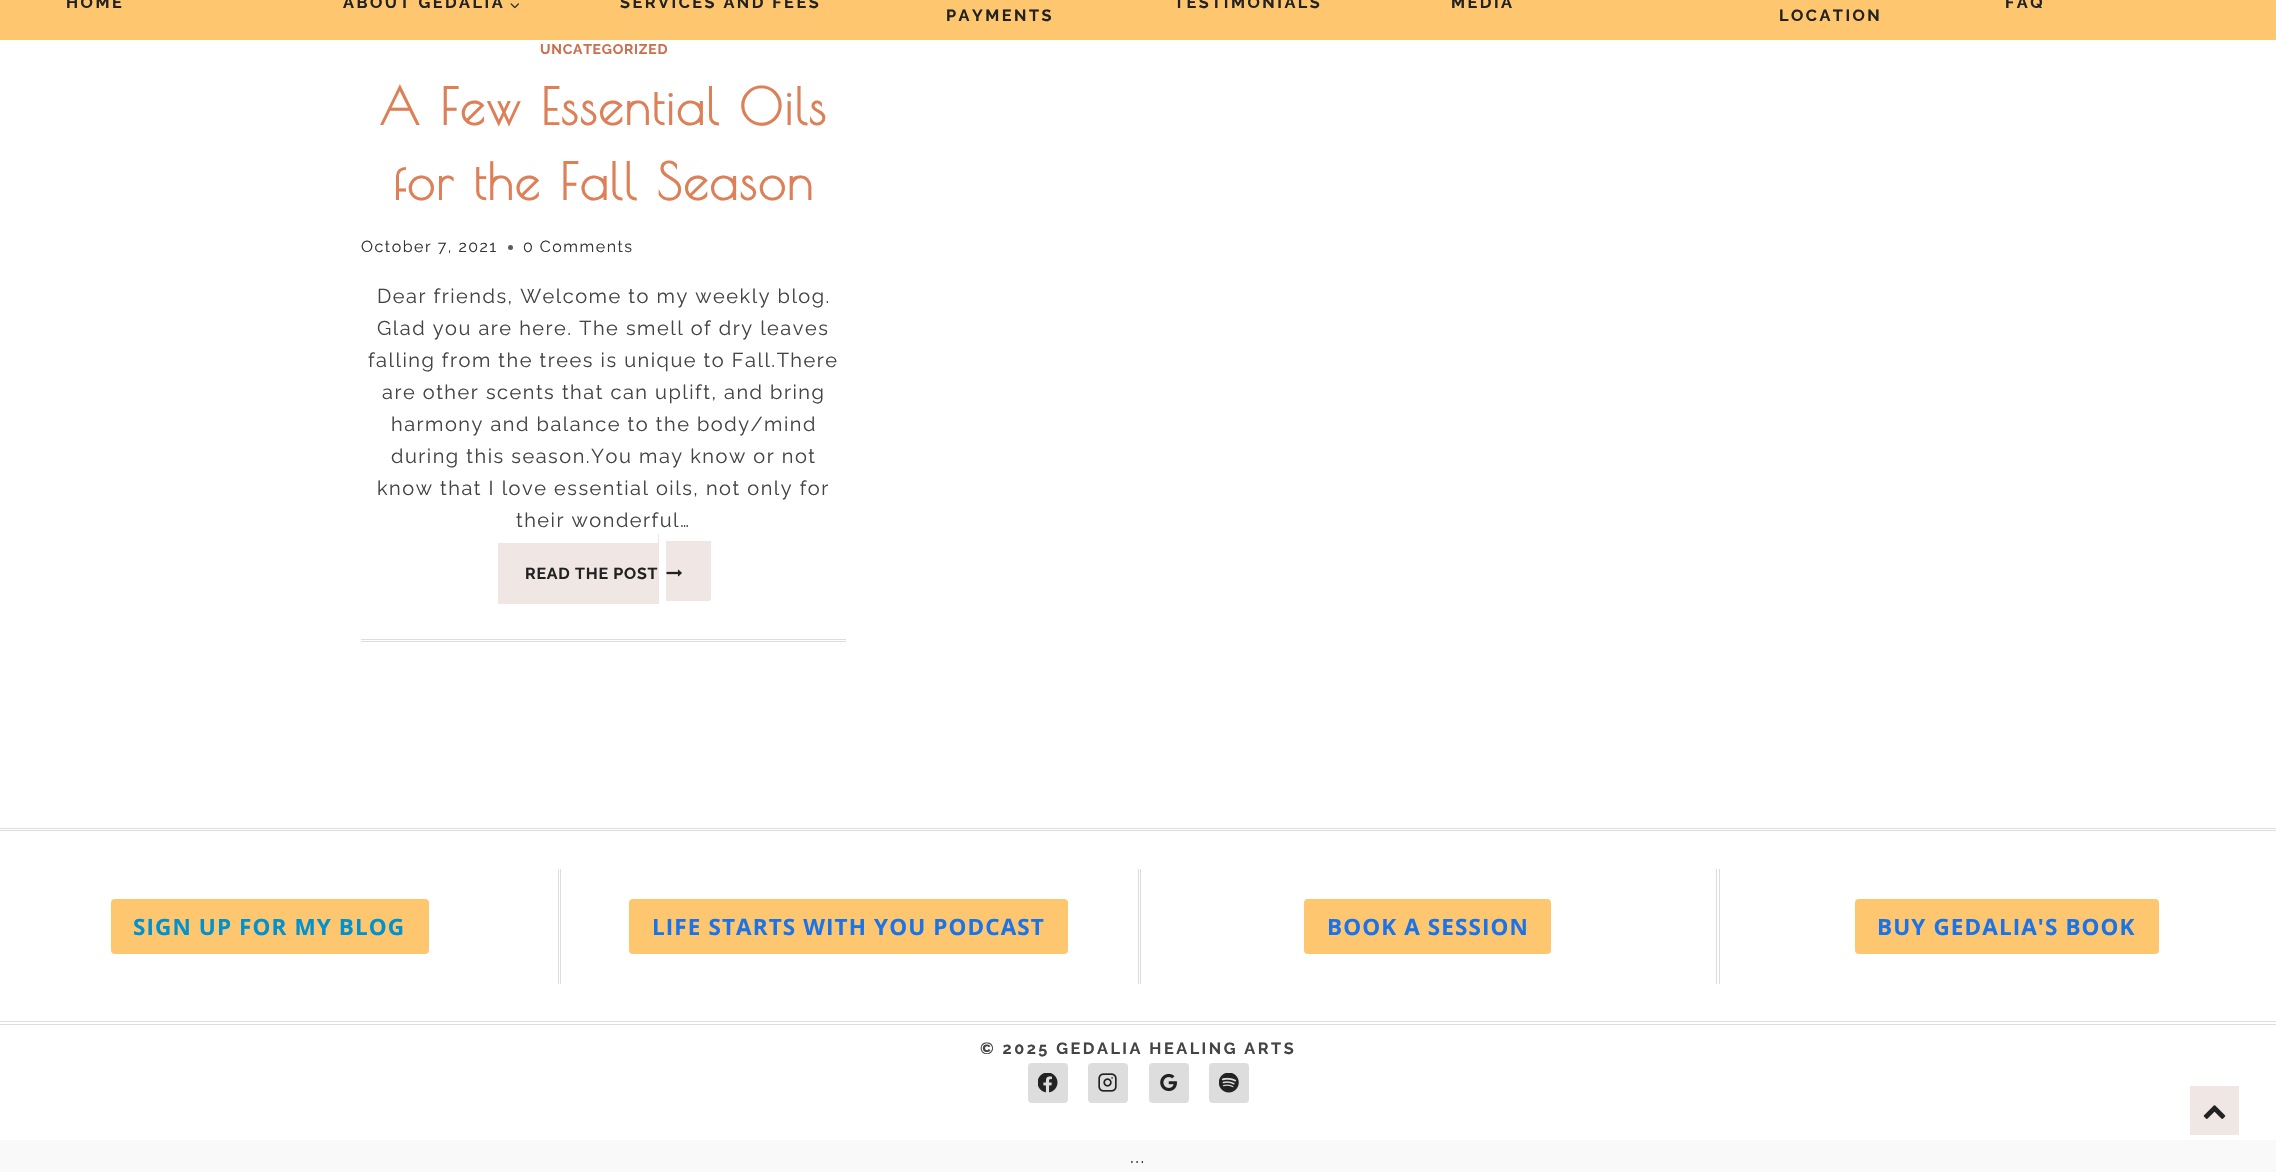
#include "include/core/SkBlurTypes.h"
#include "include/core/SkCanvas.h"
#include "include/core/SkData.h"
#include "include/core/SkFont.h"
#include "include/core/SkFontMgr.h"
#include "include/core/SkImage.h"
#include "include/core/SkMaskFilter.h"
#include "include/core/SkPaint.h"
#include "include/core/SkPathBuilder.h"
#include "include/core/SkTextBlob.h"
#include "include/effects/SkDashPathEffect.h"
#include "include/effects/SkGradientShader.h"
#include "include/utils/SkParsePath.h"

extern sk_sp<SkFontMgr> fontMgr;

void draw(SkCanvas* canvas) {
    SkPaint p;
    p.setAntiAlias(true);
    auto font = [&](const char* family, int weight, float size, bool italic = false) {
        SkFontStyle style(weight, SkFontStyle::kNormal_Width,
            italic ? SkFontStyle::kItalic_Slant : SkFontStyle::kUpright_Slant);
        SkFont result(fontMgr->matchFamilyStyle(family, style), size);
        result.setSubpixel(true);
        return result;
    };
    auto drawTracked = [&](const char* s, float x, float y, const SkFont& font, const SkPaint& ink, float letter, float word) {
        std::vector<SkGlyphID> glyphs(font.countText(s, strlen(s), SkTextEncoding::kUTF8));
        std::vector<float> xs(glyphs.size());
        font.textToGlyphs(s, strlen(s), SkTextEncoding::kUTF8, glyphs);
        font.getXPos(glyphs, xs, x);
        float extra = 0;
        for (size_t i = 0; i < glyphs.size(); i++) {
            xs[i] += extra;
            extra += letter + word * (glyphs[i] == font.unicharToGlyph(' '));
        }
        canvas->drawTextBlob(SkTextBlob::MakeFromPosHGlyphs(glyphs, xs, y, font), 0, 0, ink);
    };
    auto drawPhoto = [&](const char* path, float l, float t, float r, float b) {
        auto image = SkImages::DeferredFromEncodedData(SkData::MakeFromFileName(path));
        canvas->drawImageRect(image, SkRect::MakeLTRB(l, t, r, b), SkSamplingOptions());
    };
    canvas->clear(0xFFF9F9F9);
    p.setColor(0xFFFFFFFF);
    canvas->drawRect(SkRect::MakeLTRB(0, 40, 2276, 1140), p);
    p.setColor(0xFFFEC66F);
    canvas->drawRect(SkRect::MakeLTRB(0, 0, 2276, 40), p);
    auto font1 = font("Raleway", 700, 16.25f);
    p.setColor(0xFF222222);
    drawTracked("HOME", 66, 8, font1, p, 2.5f, 0);
    drawTracked("ABOUT GEDALIA", 343, 8, font1, p, 2.5f, 0);
    drawPhoto("media/1.png", 510, 3, 519, 9);
    {
        const struct { const char* s; float x, y; } items[] = {
            {"SERVICES AND FEES", 620, 8},
            {"TESTIMONIALS", 1174, 8},
            {"MEDIA", 1451, 8},
            {"FAQ", 2005, 8},
            {"PAYMENTS", 946, 21},
            {"LOCATION", 1779, 21},
        };
        for (auto [s, x, y] : items) {
            drawTracked(s, x, y, font1, p, 2.5f, 0);
        }
    }
    p.setColor(0xFFDDDDDD);
    canvas->drawRect(SkRect::MakeLTRB(361, 639, 846, 640), p);
    canvas->drawRect(SkRect::MakeLTRB(361, 641, 846, 642), p);
    auto font2 = font("Raleway", 700, 14);
    p.setColor(0xFFCC6F4E);
    drawTracked("UNCATEGORIZED", 540, 54, font2, p, 0.75f, 0);
    auto font3 = font("Poiret One", 700, 50);
    p.setColor(0xFFDD8057);
    drawTracked("A Few Essential Oils", 379, 125, font3, p, 1.5f, 0);
    drawTracked("for the Fall Season", 393, 200, font3, p, 1.5f, 0);
    auto font4 = font("Raleway", 400, 16);
    p.setColor(0xFF333333);
    drawTracked("October 7, 2021", 361, 252, font4, p, 1.5f, 0);
    p.setColor(0xFF5C5C5C);
    canvas->drawCircle(510.5f, 247.5f, 2.5f, p);
    p.setColor(0xFF333333);
    drawTracked("0 Comments", 523, 252, font4, p, 1.5f, 0);
    auto font5 = font("Raleway", 400, 20);
    p.setColor(0xFF444444);
    {
        const struct { const char* s; float x, y; } items[] = {
            {"Dear friends, Welcome to my weekly blog.", 377, 303},
            {"Glad you are here. The smell of dry leaves", 377, 335},
            {"falling from the trees is unique to Fall.There", 368, 367},
            {"are other scents that can uplift, and bring", 382, 399},
            {"harmony and balance to the body/mind", 391, 431},
            {"during this season.You may know or not", 391, 463},
            {"know that I love essential oils, not only for", 377, 495},
            {"their wonderful…", 516, 527},
        };
        for (auto [s, x, y] : items) {
            drawTracked(s, x, y, font5, p, 1.5f, 0);
        }
    }
    {
        const struct { float l, t, r, b; SkColor color; } items[] = {
            {498, 543, 659, 604, 0xFFF0E6E4},
            {658, 534, 659, 543, 0xFFF0E6E4},
            {666, 541, 708, 598, 0xFFF0E6E4},
            {708, 541, 711, 600, 0xFFF0E6E4},
            {666, 598, 710, 601, 0xFFF0E6E4},
        };
        for (auto [l, t, r, b, color] : items) {
            p.setColor(color);
            canvas->drawRect(SkRect::MakeLTRB(l, t, r, b), p);
        }
    }
    auto font6 = font("Raleway", 700, 16);
    p.setColor(0xFF222222);
    drawTracked("READ THE POST", 525, 579, font6, p, 0.75f, 0);
    drawPhoto("media/2.png", 666, 569, 682, 577);
    {
        const struct { float l, t, r, b; SkColor color; } items[] = {
            {0, 828, 2276, 829, 0xFFDDDDDD},
            {0, 830, 2276, 831, 0xFFDDDDDD},
            {0, 1021, 2276, 1022, 0xFFDDDDDD},
            {0, 1024, 2276, 1025, 0xFFDDDDDD},
        };
        for (auto [l, t, r, b, color] : items) {
            p.setColor(color);
            canvas->drawRect(SkRect::MakeLTRB(l, t, r, b), p);
        }
    }
    p.setColor(0xFFFEC66F);
    canvas->drawRoundRect(SkRect::MakeLTRB(111, 899, 429, 954), 4, 4, p);
    auto font7 = font("Open Sans", 700, 22.5f);
    p.setColor(0xFF0092CE);
    drawTracked("SIGN UP FOR MY BLOG", 133, 935, font7, p, 1.1f, 0);
    p.setColor(0xFFDDDDDD);
    canvas->drawRect(SkRect::MakeLTRB(558, 869, 559, 984), p);
    canvas->drawRect(SkRect::MakeLTRB(560, 869, 561, 984), p);
    p.setColor(0xFFFEC66F);
    canvas->drawRoundRect(SkRect::MakeLTRB(629, 899, 1068, 954), 4, 4, p);
    p.setColor(0xFF1A73E8);
    drawTracked("LIFE STARTS WITH YOU PODCAST", 652, 935, font7, p, 1.1f, 0);
    p.setColor(0xFFDDDDDD);
    canvas->drawRect(SkRect::MakeLTRB(1138, 869, 1139, 984), p);
    canvas->drawRect(SkRect::MakeLTRB(1140, 869, 1141, 984), p);
    p.setColor(0xFFFEC66F);
    canvas->drawRoundRect(SkRect::MakeLTRB(1304, 899, 1551, 954), 4, 4, p);
    p.setColor(0xFF1A73E8);
    drawTracked("BOOK A SESSION", 1327, 935, font7, p, 1.1f, 0);
    p.setColor(0xFFDDDDDD);
    canvas->drawRect(SkRect::MakeLTRB(1716, 869, 1717, 984), p);
    canvas->drawRect(SkRect::MakeLTRB(1719, 869, 1720, 984), p);
    p.setColor(0xFFFEC66F);
    canvas->drawRoundRect(SkRect::MakeLTRB(1855, 899, 2159, 954), 4, 4, p);
    p.setColor(0xFF1A73E8);
    drawTracked("BUY GEDALIA'S BOOK", 1877, 935, font7, p, 1.1f, 0);
    p.setColor(0xFF444444);
    drawTracked("© 2025 GEDALIA HEALING ARTS", 980, 1054, font1, p, 2.5f, 0);
    p.setColor(0xFFDDDDDD);
    canvas->drawRoundRect(SkRect::MakeLTRB(1028, 1063, 1068, 1103), 4, 4, p);
    drawPhoto("media/3.png", 1038, 1073, 1058, 1093);
    canvas->drawRoundRect(SkRect::MakeLTRB(1088, 1063, 1128, 1103), 4, 4, p);
    drawPhoto("media/4.png", 1098, 1073, 1117, 1092);
    canvas->drawRoundRect(SkRect::MakeLTRB(1149, 1063, 1189, 1103), 4, 4, p);
    drawPhoto("media/5.png", 1160, 1073, 1177, 1092);
    canvas->drawRoundRect(SkRect::MakeLTRB(1209, 1063, 1249, 1103), 4, 4, p);
    drawPhoto("media/6.png", 1219, 1073, 1239, 1093);
    p.setColor(0xFFF0E6E4);
    canvas->drawRect(SkRect::MakeLTRB(2190, 1086, 2239, 1135), p);
    drawPhoto("media/7.png", 2203, 1105, 2226, 1119);
    p.setColor(0xFF333333);
    drawTracked("...", 1130, 1163, font5, p, 1.5f, 0);
}
